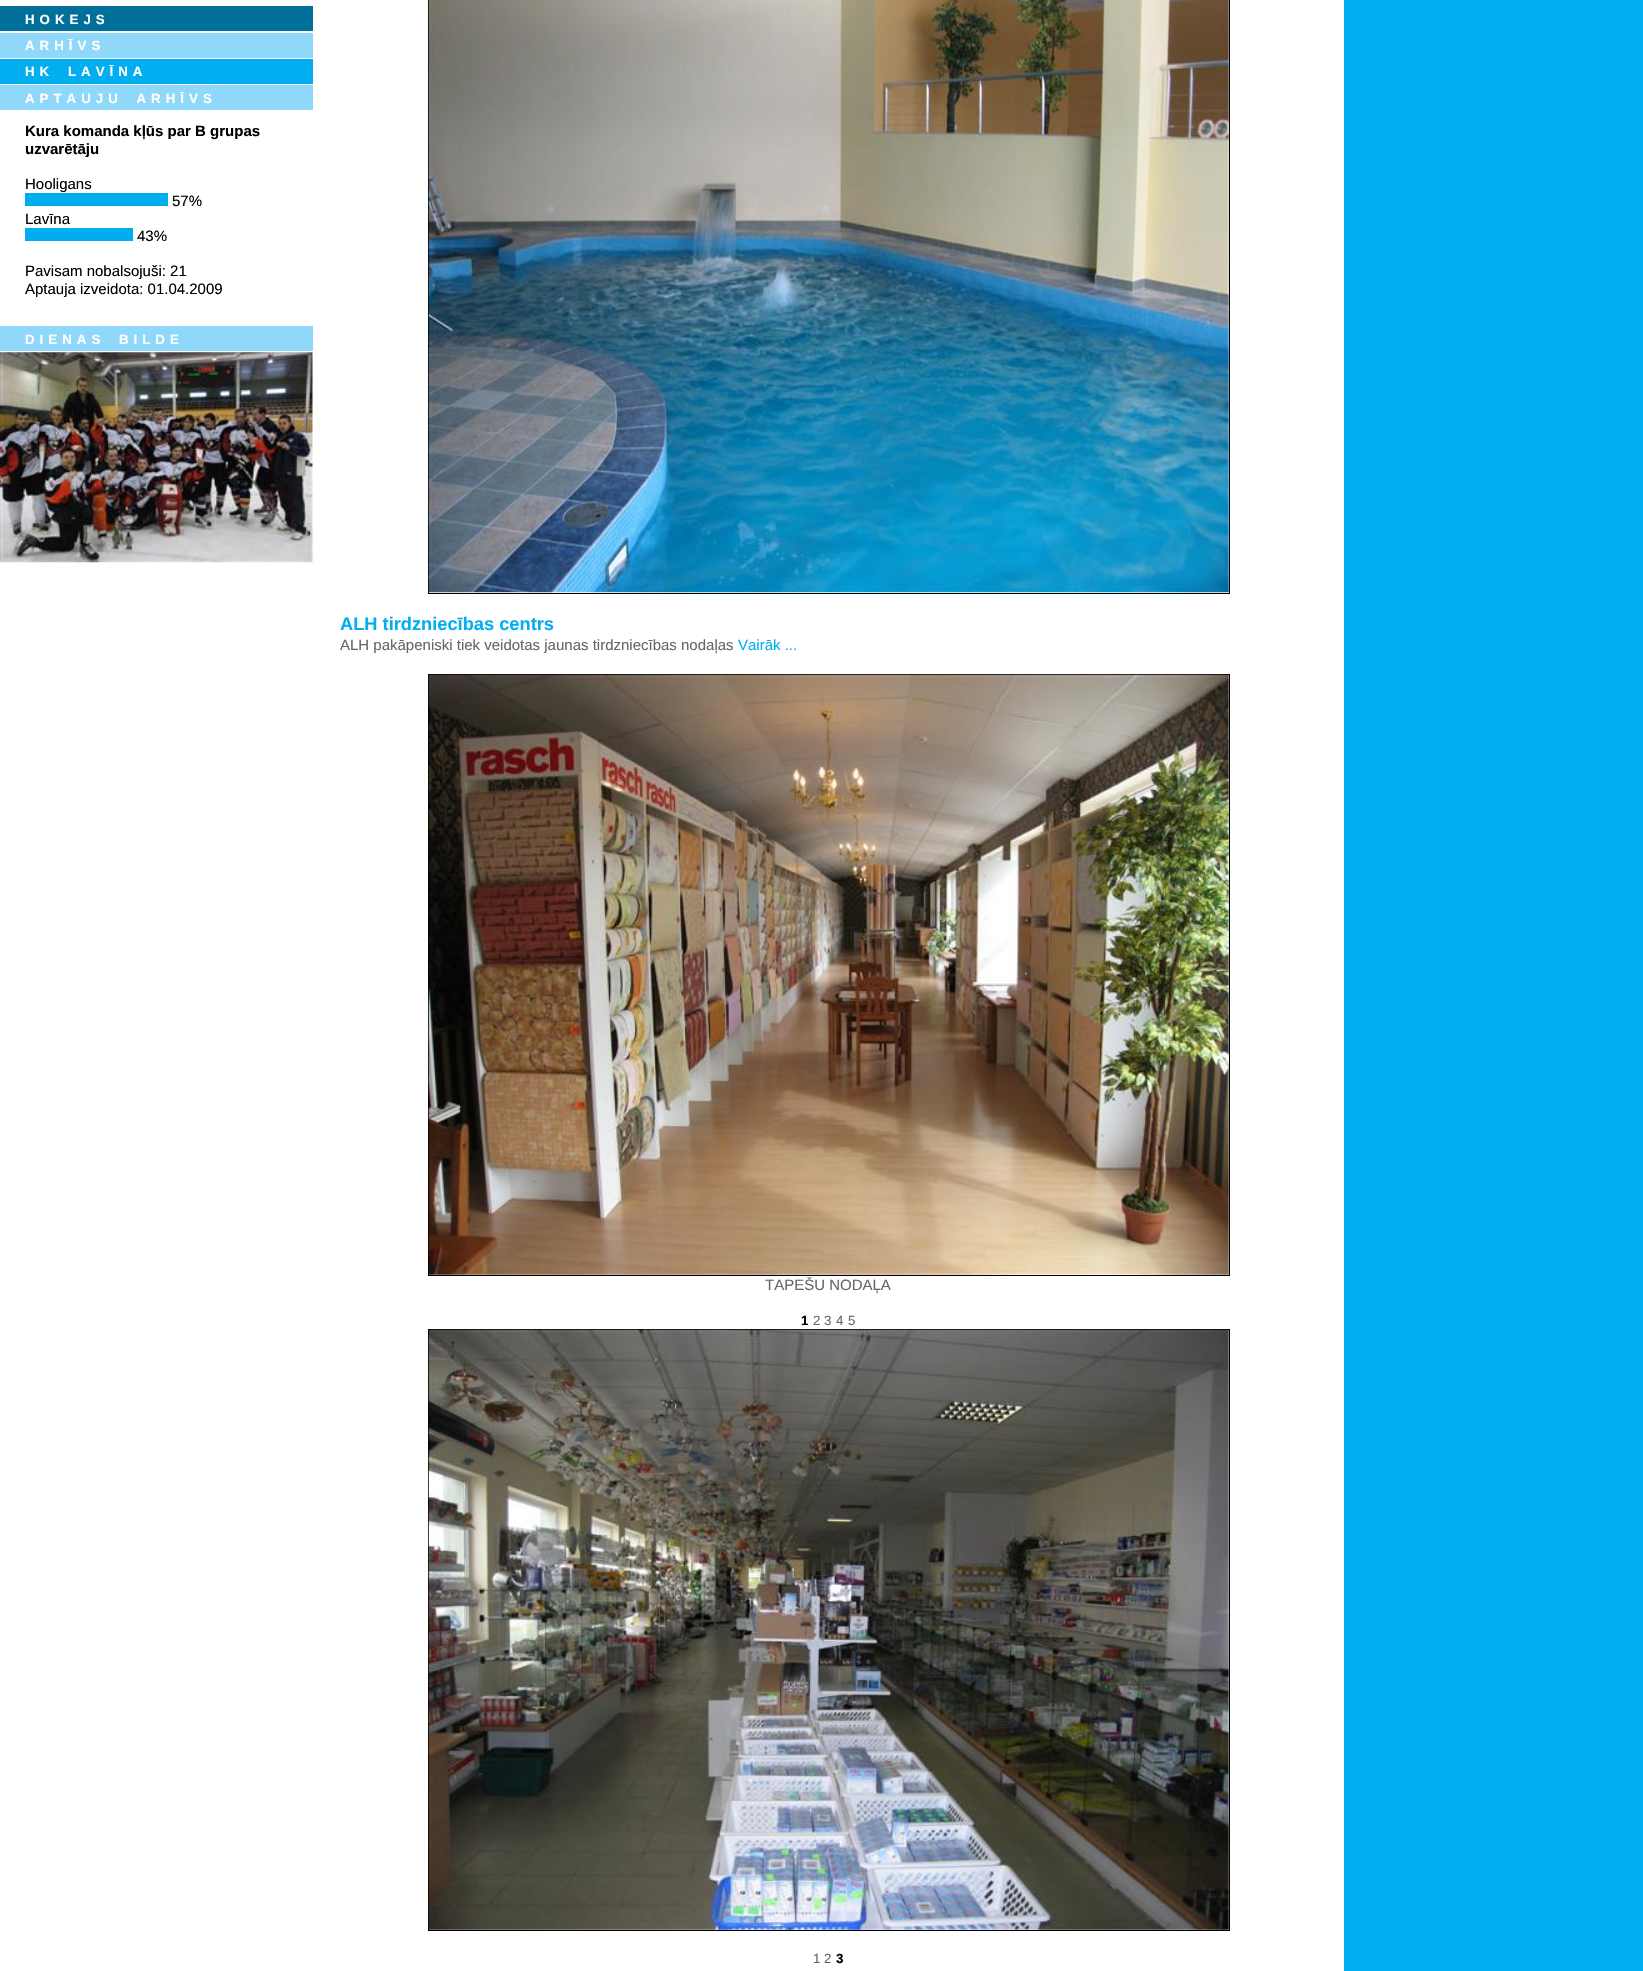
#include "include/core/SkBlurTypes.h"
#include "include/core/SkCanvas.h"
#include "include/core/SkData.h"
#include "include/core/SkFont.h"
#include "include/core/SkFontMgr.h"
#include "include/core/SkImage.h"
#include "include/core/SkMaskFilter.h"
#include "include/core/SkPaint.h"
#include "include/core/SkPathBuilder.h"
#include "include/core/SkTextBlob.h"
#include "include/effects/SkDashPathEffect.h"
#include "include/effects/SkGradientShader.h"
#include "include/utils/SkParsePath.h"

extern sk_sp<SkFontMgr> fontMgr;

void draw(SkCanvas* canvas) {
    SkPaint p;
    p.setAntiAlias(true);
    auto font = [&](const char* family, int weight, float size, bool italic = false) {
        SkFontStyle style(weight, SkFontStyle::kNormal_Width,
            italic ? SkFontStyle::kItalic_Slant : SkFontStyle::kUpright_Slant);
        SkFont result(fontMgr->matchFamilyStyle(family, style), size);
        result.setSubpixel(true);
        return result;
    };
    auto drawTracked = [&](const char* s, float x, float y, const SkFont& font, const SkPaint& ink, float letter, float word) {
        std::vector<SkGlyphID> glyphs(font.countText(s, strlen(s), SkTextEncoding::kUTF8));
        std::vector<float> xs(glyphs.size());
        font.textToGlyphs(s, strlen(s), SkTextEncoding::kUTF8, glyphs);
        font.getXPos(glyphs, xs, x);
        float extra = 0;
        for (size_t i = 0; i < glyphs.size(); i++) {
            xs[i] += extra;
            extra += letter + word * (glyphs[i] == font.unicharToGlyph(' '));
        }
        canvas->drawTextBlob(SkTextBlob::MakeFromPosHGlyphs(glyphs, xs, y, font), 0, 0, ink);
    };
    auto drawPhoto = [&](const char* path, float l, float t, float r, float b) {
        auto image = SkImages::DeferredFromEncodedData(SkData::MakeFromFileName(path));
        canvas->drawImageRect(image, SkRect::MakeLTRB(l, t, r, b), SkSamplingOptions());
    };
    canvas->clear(0xFFFFFFFF);
    p.setColor(0xFF006F9A);
    canvas->drawRect(SkRect::MakeLTRB(0, 6, 313, 31), p);
    auto font1 = font("Liberation Sans", 700, 13.3f);
    p.setColor(0xFFFFFFFF);
    drawTracked("HOKEJS", 25, 24, font1, p, 5, 0);
    p.setColor(0xFF8FD8F9);
    canvas->drawRect(SkRect::MakeLTRB(0, 33, 313, 58), p);
    p.setColor(0xFFFFFFFF);
    drawTracked("ARHĪVS", 25, 50, font1, p, 5, 0);
    p.setColor(0xFF01AEF0);
    canvas->drawRect(SkRect::MakeLTRB(0, 59, 313, 84), p);
    p.setColor(0xFFFFFFFF);
    drawTracked("HK LAVĪNA", 25, 76, font1, p, 5, 5);
    p.setColor(0xFF8FD8F9);
    canvas->drawRect(SkRect::MakeLTRB(0, 85, 313, 110), p);
    p.setColor(0xFFFFFFFF);
    drawTracked("APTAUJU ARHĪVS", 25, 103, font1, p, 5, 5);
    auto font2 = font("Liberation Sans", 700, 15);
    p.setColor(0xFF000000);
    canvas->drawString("Kura komanda kļūs par B grupas", 25, 136, font2, p);
    canvas->drawString("uzvarētāju", 25, 154, font2, p);
    auto font3 = font("Liberation Sans", 400, 15);
    canvas->drawString("Hooligans", 25, 189, font3, p);
    canvas->drawString("57%", 172, 206, font3, p);
    p.setColor(0xFF00ADEF);
    canvas->drawRect(SkRect::MakeLTRB(25, 193, 168, 206), p);
    p.setColor(0xFF000000);
    canvas->drawString("Lavīna", 25, 224, font3, p);
    canvas->drawString("43%", 137, 241, font3, p);
    p.setColor(0xFF00ADEF);
    canvas->drawRect(SkRect::MakeLTRB(25, 228, 133, 241), p);
    p.setColor(0xFF000000);
    canvas->drawString("Pavisam nobalsojuši: 21", 25, 276, font3, p);
    canvas->drawString("Aptauja izveidota: 01.04.2009", 25, 294, font3, p);
    p.setColor(0xFF8FD8F9);
    canvas->drawRect(SkRect::MakeLTRB(0, 326, 313, 351), p);
    p.setColor(0xFFFFFFFF);
    drawTracked("DIENAS BILDE", 25, 344, font1, p, 5, 5);
    drawPhoto("media/1.png", 0, 352, 313, 563);
    p.setColor(0xFF01AEF0);
    canvas->drawRect(SkRect::MakeLTRB(1344, 0, 1643, 1971), p);
    p.setStyle(SkPaint::kStroke_Style);
    p.setStrokeWidth(1);
    p.setColor(0xFF000000);
    canvas->drawRect(SkRect::MakeLTRB(428.5f, -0.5f, 1229.5f, 593.5f), p);
    drawPhoto("media/2.png", 428, 0, 1229, 593);
    auto font4 = font("Liberation Sans", 700, 18.25f);
    p.setStyle(SkPaint::kFill_Style);
    p.setColor(0xFF01AEF0);
    canvas->drawString("ALH tirdzniecības centrs", 340, 630, font4, p);
    p.setColor(0xFF666666);
    canvas->drawString("ALH pakāpeniski tiek veidotas jaunas tirdzniecības nodaļas", 340, 650, font3, p);
    p.setColor(0xFF01AEF0);
    canvas->drawString("Vairāk ...", 738, 650, font3, p);
    p.setStyle(SkPaint::kStroke_Style);
    p.setColor(0xFF000000);
    canvas->drawRect(SkRect::MakeLTRB(428.5f, 674.5f, 1229.5f, 1275.5f), p);
    drawPhoto("media/3.png", 428, 674, 1229, 1275);
    p.setStyle(SkPaint::kFill_Style);
    p.setColor(0xFF666666);
    canvas->drawString("TAPEŠU NODAĻA", 765, 1290, font3, p);
    p.setColor(0xFF000000);
    canvas->drawString("1", 801, 1325, font1, p);
    auto font5 = font("Liberation Sans", 400, 13.3f);
    p.setColor(0xFF666666);
    {
        const struct { const char* s; float x, y; } items[] = {
            {"2", 813, 1325},
            {"3", 824, 1325},
            {"4", 836, 1325},
            {"5", 848, 1325},
        };
        for (auto [s, x, y] : items) {
            canvas->drawString(s, x, y, font5, p);
        }
    }
    p.setStyle(SkPaint::kStroke_Style);
    p.setColor(0xFF000000);
    canvas->drawRect(SkRect::MakeLTRB(428.5f, 1329.5f, 1229.5f, 1930.5f), p);
    drawPhoto("media/4.png", 428, 1329, 1229, 1930);
    p.setStyle(SkPaint::kFill_Style);
    p.setColor(0xFF666666);
    canvas->drawString("1", 813, 1963, font5, p);
    canvas->drawString("2", 824, 1963, font5, p);
    p.setColor(0xFF000000);
    canvas->drawString("3", 836, 1963, font1, p);
}
